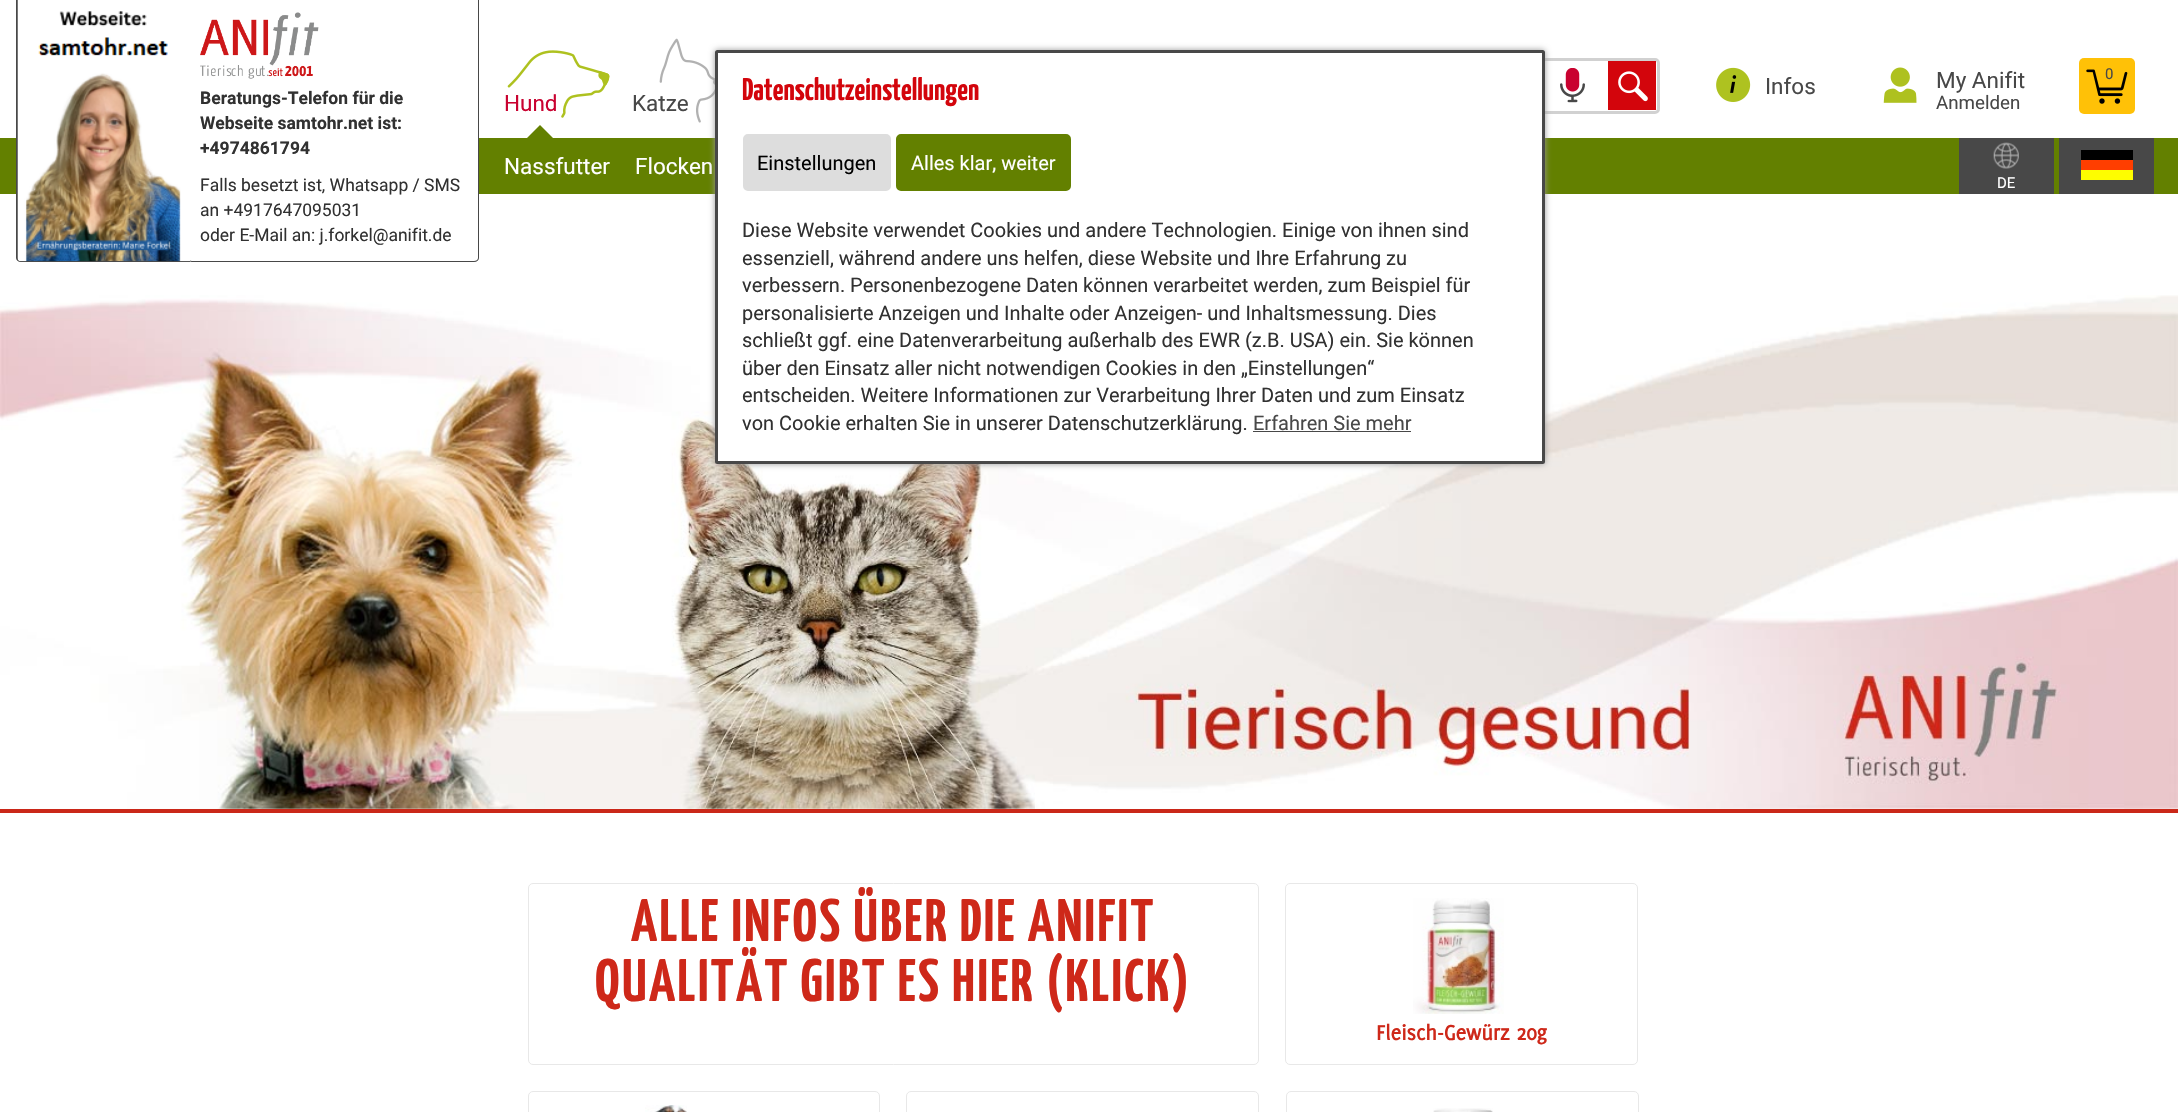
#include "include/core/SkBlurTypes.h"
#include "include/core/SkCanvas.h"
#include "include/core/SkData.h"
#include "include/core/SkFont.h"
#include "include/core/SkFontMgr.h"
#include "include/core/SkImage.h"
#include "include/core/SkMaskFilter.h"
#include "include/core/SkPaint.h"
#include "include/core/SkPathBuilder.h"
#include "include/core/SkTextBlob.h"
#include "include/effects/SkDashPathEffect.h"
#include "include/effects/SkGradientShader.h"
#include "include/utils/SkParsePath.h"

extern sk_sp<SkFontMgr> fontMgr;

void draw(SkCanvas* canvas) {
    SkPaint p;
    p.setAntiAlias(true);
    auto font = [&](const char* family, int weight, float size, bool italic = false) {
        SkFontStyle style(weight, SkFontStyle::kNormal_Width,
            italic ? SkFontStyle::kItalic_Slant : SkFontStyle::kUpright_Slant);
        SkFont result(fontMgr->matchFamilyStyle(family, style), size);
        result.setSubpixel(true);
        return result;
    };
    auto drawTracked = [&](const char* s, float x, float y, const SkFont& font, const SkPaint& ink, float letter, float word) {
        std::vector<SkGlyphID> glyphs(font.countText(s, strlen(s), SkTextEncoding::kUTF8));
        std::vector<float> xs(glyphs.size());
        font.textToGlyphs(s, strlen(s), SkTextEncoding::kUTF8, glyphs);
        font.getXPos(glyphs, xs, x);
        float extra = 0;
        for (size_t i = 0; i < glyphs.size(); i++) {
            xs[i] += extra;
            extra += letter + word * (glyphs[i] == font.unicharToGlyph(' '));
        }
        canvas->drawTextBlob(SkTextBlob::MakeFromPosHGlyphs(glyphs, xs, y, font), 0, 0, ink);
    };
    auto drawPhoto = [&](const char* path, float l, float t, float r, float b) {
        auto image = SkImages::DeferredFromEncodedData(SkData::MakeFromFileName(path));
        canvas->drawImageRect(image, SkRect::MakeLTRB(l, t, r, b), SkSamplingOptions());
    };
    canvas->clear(0xFFFFFFFF);
    drawPhoto("media/1.png", 1716, 67, 1751, 102);
    auto font1 = font("Roboto", 400, 22.5f);
    p.setColor(0xFF484848);
    canvas->drawString("Infos", 1765, 94, font1, p);
    drawPhoto("media/2.png", 1883, 67, 1917, 103);
    canvas->drawString("My Anifit", 1936, 88, font1, p);
    auto font2 = font("Roboto", 400, 18.75f);
    canvas->drawString("Anmelden", 1936, 109, font2, p);
    p.setColor(0xFFFFC107);
    canvas->drawRoundRect(SkRect::MakeLTRB(2079, 58, 2135, 114), 5, 5, p);
    drawPhoto("media/3.png", 2086, 69, 2128, 104);
    auto font3 = font("Roboto", 400, 15);
    p.setColor(0xFF484848);
    canvas->drawString("0", 2105, 79, font3, p);
    p.setColor(0xFF638000);
    canvas->drawRect(SkRect::MakeLTRB(0, 138, 2178, 194), p);
    p.setColor(0xFFFFFFFF);
    canvas->drawPath(SkPathBuilder().moveTo(188, 0).lineTo(479, 0).lineTo(479, 258).cubicTo(479, 261, 477, 263, 474, 263).lineTo(193, 263).cubicTo(190, 263, 188, 261, 188, 258).close().detach(), p);
    p.setColor(0xFF484848);
    canvas->drawPath(SkPathBuilder(SkPathFillType::kEvenOdd).moveTo(188, 0).lineTo(479, 0).lineTo(479, 258).cubicTo(479, 260, 477, 262, 474, 262).lineTo(192, 262).cubicTo(190, 262, 188, 260, 188, 258).close().moveTo(188, 0).lineTo(478, 0).lineTo(478, 258).cubicTo(478, 260, 476, 261, 474, 261).lineTo(192, 261).cubicTo(190, 261, 188, 260, 188, 258).close().detach(), p);
    canvas->drawPath(SkPathBuilder(SkPathFillType::kEvenOdd).moveTo(16, 0).lineTo(190, 0).lineTo(190, 262).lineTo(21, 262).cubicTo(18, 262, 16, 260, 16, 258).close().moveTo(18, 0).lineTo(190, 0).lineTo(190, 261).lineTo(21, 261).cubicTo(19, 261, 18, 260, 18, 258).close().detach(), p);
    drawPhoto("media/4.png", 17, 0, 190, 262);
    drawPhoto("media/5.png", 200, 12, 319, 79);
    auto font4 = font("Roboto", 700, 17.5f);
    p.setColor(0xFF313131);
    {
        const struct { const char* s; float x, y; } items[] = {
            {"Beratungs-Telefon für die", 200, 104},
            {"Webseite samtohr.net ist:", 200, 129},
            {"+4974861794", 200, 154},
        };
        for (auto [s, x, y] : items) {
            canvas->drawString(s, x, y, font4, p);
        }
    }
    auto font5 = font("Roboto", 400, 17.5f);
    {
        const struct { const char* s; float x, y; } items[] = {
            {"Falls besetzt ist, Whatsapp / SMS", 200, 191},
            {"an +4917647095031", 200, 216},
            {"oder E-Mail an: j.forkel@anifit.de", 200, 241},
        };
        for (auto [s, x, y] : items) {
            canvas->drawString(s, x, y, font5, p);
        }
    }
    p.setColor(0xFFC90230);
    canvas->drawString("Hund", 504, 111, font1, p);
    drawPhoto("media/6.png", 507, 50, 610, 118);
    p.setColor(0xFF638000);
    canvas->drawPath(SkPathBuilder().moveTo(555, 140).lineTo(525, 140).lineTo(540, 125).close().detach(), p);
    p.setColor(0xFFFFFFFF);
    canvas->drawString("Nassfutter", 504, 174, font1, p);
    canvas->drawString("Flocken", 635, 174, font1, p);
    p.setColor(0xFF484848);
    canvas->drawString("Katze", 632, 111, font1, p);
    drawPhoto("media/7.png", 659, 38, 715, 123);
    p.setStyle(SkPaint::kStroke_Style);
    p.setStrokeWidth(3);
    p.setColor(0xFFD1D1D1);
    canvas->drawRoundRect(SkRect::MakeLTRB(926.5f, 59.5f, 1658.5f, 112.5f), 3.5f, 3.5f, p);
    drawPhoto("media/8.png", 1560, 68, 1585, 103);
    p.setStyle(SkPaint::kFill_Style);
    p.setColor(0xFFD3050C);
    canvas->drawRect(SkRect::MakeLTRB(1608, 61, 1656, 110), p);
    drawPhoto("media/9.png", 1618, 71, 1648, 102);
    p.setColor(0xFF484848);
    canvas->drawRect(SkRect::MakeLTRB(1959, 138, 2054, 194), p);
    drawPhoto("media/10.png", 1993, 142, 2019, 169);
    p.setColor(0xFFFFFFFF);
    canvas->drawString("DE", 1997, 188, font3, p);
    {
        const struct { float l, t, r, b; SkColor color; } items[] = {
            {2059, 138, 2154, 194, 0xFF484848},
            {2081, 150, 2133, 160, 0xFF000000},
            {2081, 160, 2133, 170, 0xFFFF3E00},
            {2081, 170, 2133, 180, 0xFFFEFD00},
        };
        for (auto [l, t, r, b, color] : items) {
            p.setColor(color);
            canvas->drawRect(SkRect::MakeLTRB(l, t, r, b), p);
        }
    }
    drawPhoto("media/11.png", 0, 295, 2178, 809);
    p.setColor(0xFFCA2718);
    canvas->drawRect(SkRect::MakeLTRB(0, 809, 2178, 813), p);
    p.setStyle(SkPaint::kStroke_Style);
    p.setStrokeWidth(1);
    p.setColor(0xFFE8E8E8);
    canvas->drawRoundRect(SkRect::MakeLTRB(528.5f, 883.5f, 1258.5f, 1064.5f), 4.5f, 4.5f, p);
    auto font6 = font("Yanone Kaffeesatz", 700, 60);
    p.setStyle(SkPaint::kFill_Style);
    p.setColor(0xFFCE2819);
    drawTracked("ALLE INFOS ÜBER DIE ANIFIT", 631, 941, font6, p, 2.4f, 0);
    drawTracked("QUALITÄT GIBT ES HIER (KLICK)", 595, 1001, font6, p, 2.4f, 0);
    p.setStyle(SkPaint::kStroke_Style);
    p.setColor(0xFFE8E8E8);
    canvas->drawRoundRect(SkRect::MakeLTRB(1285.5f, 883.5f, 1637.5f, 1064.5f), 4.5f, 4.5f, p);
    drawPhoto("media/12.png", 1413, 898, 1504, 1014);
    auto font7 = font("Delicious", 700, 22.5f);
    p.setStyle(SkPaint::kFill_Style);
    p.setColor(0xFFCE2819);
    canvas->drawString("Fleisch-Gewürz 20g", 1376, 1040, font7, p);
    p.setStyle(SkPaint::kStroke_Style);
    p.setColor(0xFFE8E8E8);
    canvas->drawRoundRect(SkRect::MakeLTRB(528.5f, 1091.5f, 879.5f, 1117.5f), 4.5f, 4.5f, p);
    drawPhoto("media/13.png", 645, 1105, 687, 1112);
    canvas->drawRoundRect(SkRect::MakeLTRB(906.5f, 1091.5f, 1258.5f, 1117.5f), 4.5f, 4.5f, p);
    canvas->drawRoundRect(SkRect::MakeLTRB(1286.5f, 1091.5f, 1638.5f, 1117.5f), 4.5f, 4.5f, p);
    drawPhoto("media/14.png", 1433, 1108, 1493, 1112);
    p.setStyle(SkPaint::kFill_Style);
    p.setColor(0xFF999999);
    p.setMaskFilter(SkMaskFilter::MakeBlur(kNormal_SkBlurStyle, 3));
    canvas->drawRoundRect(SkRect::MakeLTRB(715, 50, 1545, 464), 2.5f, 2.5f, p);
    p.setMaskFilter(nullptr);
    p.setColor(0xFFFFFFFF);
    canvas->drawRoundRect(SkRect::MakeLTRB(716.5f, 51.5f, 1543.5f, 462.5f), 1, 1, p);
    p.setStyle(SkPaint::kStroke_Style);
    p.setStrokeWidth(3);
    p.setColor(0xFF484848);
    canvas->drawRoundRect(SkRect::MakeLTRB(716.5f, 51.5f, 1543.5f, 462.5f), 1, 1, p);
    auto font8 = font("Yanone Kaffeesatz", 700, 31.25f);
    p.setStyle(SkPaint::kFill_Style);
    p.setColor(0xFFD3050C);
    canvas->drawString("Datenschutzeinstellungen", 742, 100, font8, p);
    p.setColor(0xFFDDDDDD);
    canvas->drawRoundRect(SkRect::MakeLTRB(744.5f, 135.5f, 889.5f, 189.5f), 3.5f, 3.5f, p);
    p.setStyle(SkPaint::kStroke_Style);
    canvas->drawRoundRect(SkRect::MakeLTRB(744.5f, 135.5f, 889.5f, 189.5f), 3.5f, 3.5f, p);
    auto font9 = font("Roboto", 400, 20);
    p.setStyle(SkPaint::kFill_Style);
    p.setColor(0xFF000000);
    canvas->drawString("Einstellungen", 757, 170, font9, p);
    p.setColor(0xFF638000);
    canvas->drawRoundRect(SkRect::MakeLTRB(897.5f, 135.5f, 1069.5f, 189.5f), 3.5f, 3.5f, p);
    p.setStyle(SkPaint::kStroke_Style);
    canvas->drawRoundRect(SkRect::MakeLTRB(897.5f, 135.5f, 1069.5f, 189.5f), 3.5f, 3.5f, p);
    p.setStyle(SkPaint::kFill_Style);
    p.setColor(0xFFFFFFFF);
    canvas->drawString("Alles klar, weiter", 911, 170, font9, p);
    p.setColor(0xFF313131);
    {
        const struct { const char* s; float x, y; } items[] = {
            {"Diese Website verwendet Cookies und andere Technologien. Einige von ihnen sind", 742, 237},
            {"essenziell, während andere uns helfen, diese Website und Ihre Erfahrung zu", 742, 265},
            {"verbessern. Personenbezogene Daten können verarbeitet werden, zum Beispiel für", 742, 292},
            {"personalisierte Anzeigen und Inhalte oder Anzeigen- und Inhaltsmessung. Dies", 742, 320},
            {"schließt ggf. eine Datenverarbeitung außerhalb des EWR (z.B. USA) ein. Sie können", 742, 347},
            {"über den Einsatz aller nicht notwendigen Cookies in den „Einstellungen“", 742, 375},
            {"entscheiden. Weitere Informationen zur Verarbeitung Ihrer Daten und zum Einsatz", 742, 402},
            {"von Cookie erhalten Sie in unserer Datenschutzerklärung.", 742, 430},
        };
        for (auto [s, x, y] : items) {
            canvas->drawString(s, x, y, font9, p);
        }
    }
    p.setColor(0xFF484848);
    canvas->drawString("Erfahren Sie mehr", 1253, 430, font9, p);
    canvas->drawRect(SkRect::MakeLTRB(1253, 431, 1411, 432), p);
}
